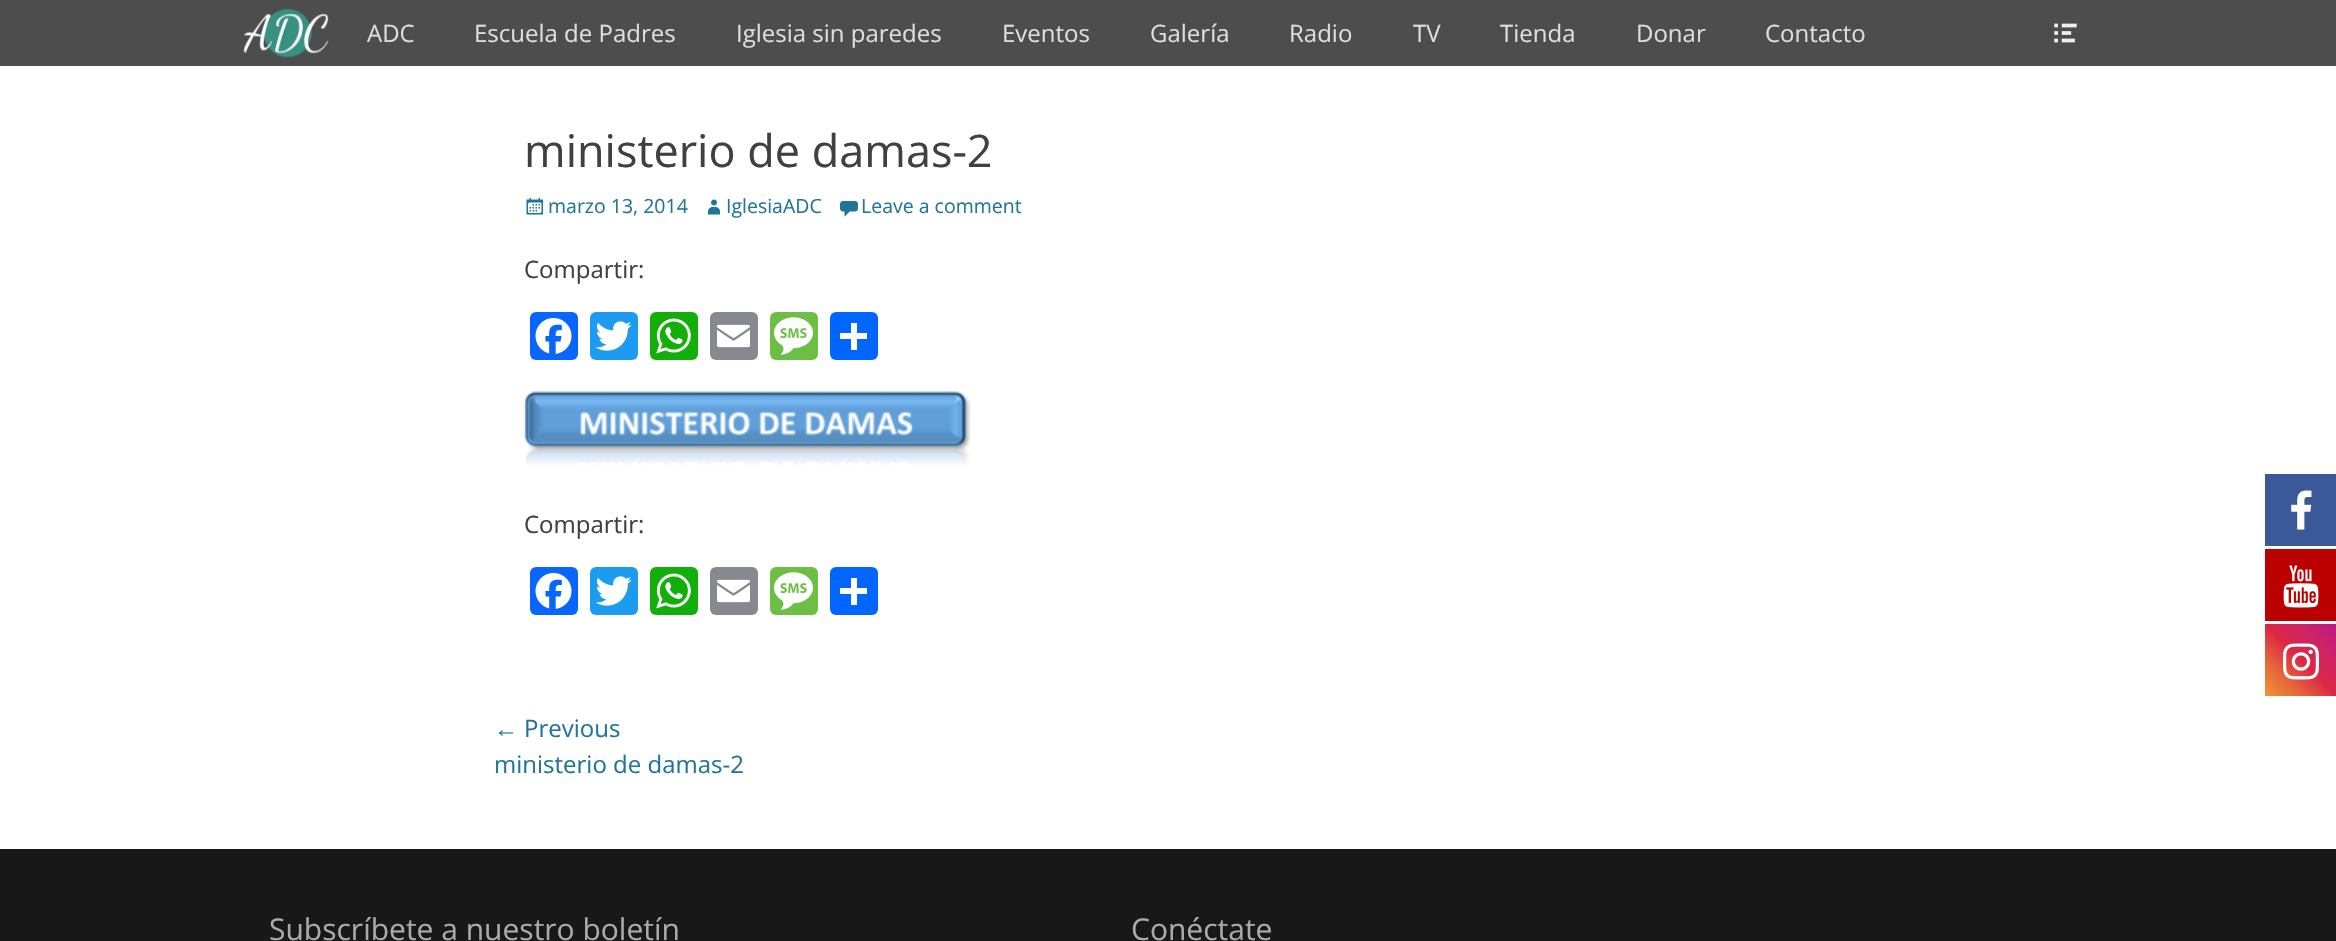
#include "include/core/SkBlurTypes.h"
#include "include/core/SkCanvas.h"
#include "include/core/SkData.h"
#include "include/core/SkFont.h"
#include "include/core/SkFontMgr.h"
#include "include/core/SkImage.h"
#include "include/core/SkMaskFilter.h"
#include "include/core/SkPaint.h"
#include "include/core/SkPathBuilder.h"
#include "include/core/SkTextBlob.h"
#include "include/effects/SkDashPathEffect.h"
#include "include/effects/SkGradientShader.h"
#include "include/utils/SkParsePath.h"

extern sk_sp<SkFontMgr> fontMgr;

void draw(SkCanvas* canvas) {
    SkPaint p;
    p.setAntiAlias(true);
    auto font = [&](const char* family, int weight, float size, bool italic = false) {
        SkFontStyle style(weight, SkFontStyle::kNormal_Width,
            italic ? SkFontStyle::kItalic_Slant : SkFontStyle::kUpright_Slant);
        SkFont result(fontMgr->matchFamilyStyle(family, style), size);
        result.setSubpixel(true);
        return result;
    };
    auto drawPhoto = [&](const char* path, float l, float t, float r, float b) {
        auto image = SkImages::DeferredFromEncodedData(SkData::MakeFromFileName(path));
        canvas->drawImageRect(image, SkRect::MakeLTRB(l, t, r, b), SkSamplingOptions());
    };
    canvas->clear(0xFFFFFFFF);
    p.setColor(0xFF4D4D4D);
    canvas->drawRect(SkRect::MakeLTRB(0, 0, 2336, 66), p);
    drawPhoto("media/1.png", 243, 8, 329, 58);
    auto font1 = font("Open Sans", 400, 24);
    p.setColor(0xFFDDDDDD);
    {
        const struct { const char* s; float x, y; } items[] = {
            {"ADC", 367, 42},
            {"Escuela de Padres", 474, 42},
            {"Iglesia sin paredes", 736, 42},
            {"Eventos", 1002, 42},
            {"Galería", 1150, 42},
            {"Radio", 1289, 42},
            {"TV", 1413, 42},
            {"Tienda", 1500, 42},
            {"Donar", 1636, 42},
            {"Contacto", 1765, 42},
        };
        for (auto [s, x, y] : items) {
            canvas->drawString(s, x, y, font1, p);
        }
    }
    drawPhoto("media/2.png", 2054, 23, 2077, 43);
    auto font2 = font("Open Sans", 400, 45);
    p.setColor(0xFF404040);
    canvas->drawString("ministerio de damas-2", 524, 167, font2, p);
    drawPhoto("media/3.png", 526, 198, 543, 215);
    auto font3 = font("Open Sans", 400, 19.5f);
    p.setColor(0xFF21759B);
    canvas->drawString("marzo 13, 2014", 548, 213, font3, p);
    drawPhoto("media/4.png", 708, 199, 720, 215);
    canvas->drawString("IglesiaADC", 726, 213, font3, p);
    drawPhoto("media/5.png", 840, 201, 858, 217);
    canvas->drawString("Leave a comment", 861, 213, font3, p);
    p.setColor(0xFF404040);
    canvas->drawString("Compartir:", 524, 278, font1, p);
    p.setColor(0xFF0866FF);
    canvas->drawRoundRect(SkRect::MakeLTRB(530, 312, 578, 360), 6, 6, p);
    drawPhoto("media/6.png", 535, 318, 572, 354);
    p.setColor(0xFF1D9BF0);
    canvas->drawRoundRect(SkRect::MakeLTRB(590, 312, 638, 360), 6, 6, p);
    drawPhoto("media/7.png", 595, 321, 632, 351);
    p.setColor(0xFF12AF0A);
    canvas->drawRoundRect(SkRect::MakeLTRB(650, 312, 698, 360), 6, 6, p);
    drawPhoto("media/8.png", 656, 318, 691, 354);
    p.setColor(0xFF888990);
    canvas->drawRoundRect(SkRect::MakeLTRB(710, 312, 758, 360), 6, 6, p);
    drawPhoto("media/9.png", 717, 324, 750, 348);
    p.setColor(0xFF6CBE45);
    canvas->drawRoundRect(SkRect::MakeLTRB(770, 312, 818, 360), 6, 6, p);
    drawPhoto("media/10.png", 774, 317, 813, 355);
    p.setColor(0xFF0166FF);
    canvas->drawRoundRect(SkRect::MakeLTRB(830, 312, 878, 360), 6, 6, p);
    p.setColor(0xFFFFFFFF);
    canvas->drawRect(SkRect::MakeLTRB(851, 323, 857, 350), p);
    canvas->drawRect(SkRect::MakeLTRB(840, 333, 867, 339), p);
    drawPhoto("media/11.png", 524, 391, 971, 465);
    p.setColor(0xFF404040);
    canvas->drawString("Compartir:", 524, 533, font1, p);
    p.setColor(0xFF0866FF);
    canvas->drawRoundRect(SkRect::MakeLTRB(530, 567, 578, 615), 6, 6, p);
    drawPhoto("media/6.png", 535, 573, 572, 609);
    p.setColor(0xFF1D9BF0);
    canvas->drawRoundRect(SkRect::MakeLTRB(590, 567, 638, 615), 6, 6, p);
    drawPhoto("media/7.png", 595, 576, 632, 606);
    p.setColor(0xFF12AF0A);
    canvas->drawRoundRect(SkRect::MakeLTRB(650, 567, 698, 615), 6, 6, p);
    drawPhoto("media/8.png", 656, 573, 691, 609);
    p.setColor(0xFF888990);
    canvas->drawRoundRect(SkRect::MakeLTRB(710, 567, 758, 615), 6, 6, p);
    drawPhoto("media/9.png", 717, 579, 750, 603);
    p.setColor(0xFF6CBE45);
    canvas->drawRoundRect(SkRect::MakeLTRB(770, 567, 818, 615), 6, 6, p);
    drawPhoto("media/10.png", 774, 572, 813, 610);
    p.setColor(0xFF0166FF);
    canvas->drawRoundRect(SkRect::MakeLTRB(830, 567, 878, 615), 6, 6, p);
    p.setColor(0xFFFFFFFF);
    canvas->drawRect(SkRect::MakeLTRB(851, 578, 857, 605), p);
    canvas->drawRect(SkRect::MakeLTRB(840, 588, 867, 594), p);
    auto font4 = font("Liberation Sans", 400, 24);
    p.setColor(0xFF21759B);
    canvas->drawString("←", 494, 737, font4, p);
    canvas->drawString("Previous", 524, 737, font1, p);
    canvas->drawString("ministerio de damas-2", 494, 773, font1, p);
    p.setColor(0xFF181818);
    canvas->drawRect(SkRect::MakeLTRB(0, 849, 2336, 941), p);
    auto font5 = font("Open Sans", 400, 30);
    p.setColor(0xFFAAAAAA);
    canvas->drawString("Subscríbete a nuestro boletín", 269, 940, font5, p);
    canvas->drawString("Conéctate", 1131, 940, font5, p);
    p.setColor(0xFF3B5998);
    canvas->drawRect(SkRect::MakeLTRB(2265, 474, 2336, 546), p);
    drawPhoto("media/12.png", 2291, 490, 2312, 530);
    p.setColor(0xFFBB0000);
    canvas->drawRect(SkRect::MakeLTRB(2265, 549, 2336, 621), p);
    drawPhoto("media/13.png", 2283, 565, 2319, 608);
    {
        const SkColor colors[] = {0xFFF09433, 0xFFE6683C, 0xFFDC2743, 0xFFCC2366, 0xFFBC1888};
        const float stops[] = {0, 0.25f, 0.5f, 0.75f, 1};
        const SkPoint ends[] = {{2265, 696}, {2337, 624}};
        p.setShader(SkGradientShader::MakeLinear(ends, colors, stops, 5, SkTileMode::kClamp));
        p.setAlpha(255);
    }
    canvas->drawRect(SkRect::MakeLTRB(2265, 624, 2336, 696), p);
    drawPhoto("media/14.png", 2283, 643, 2319, 680);
}
